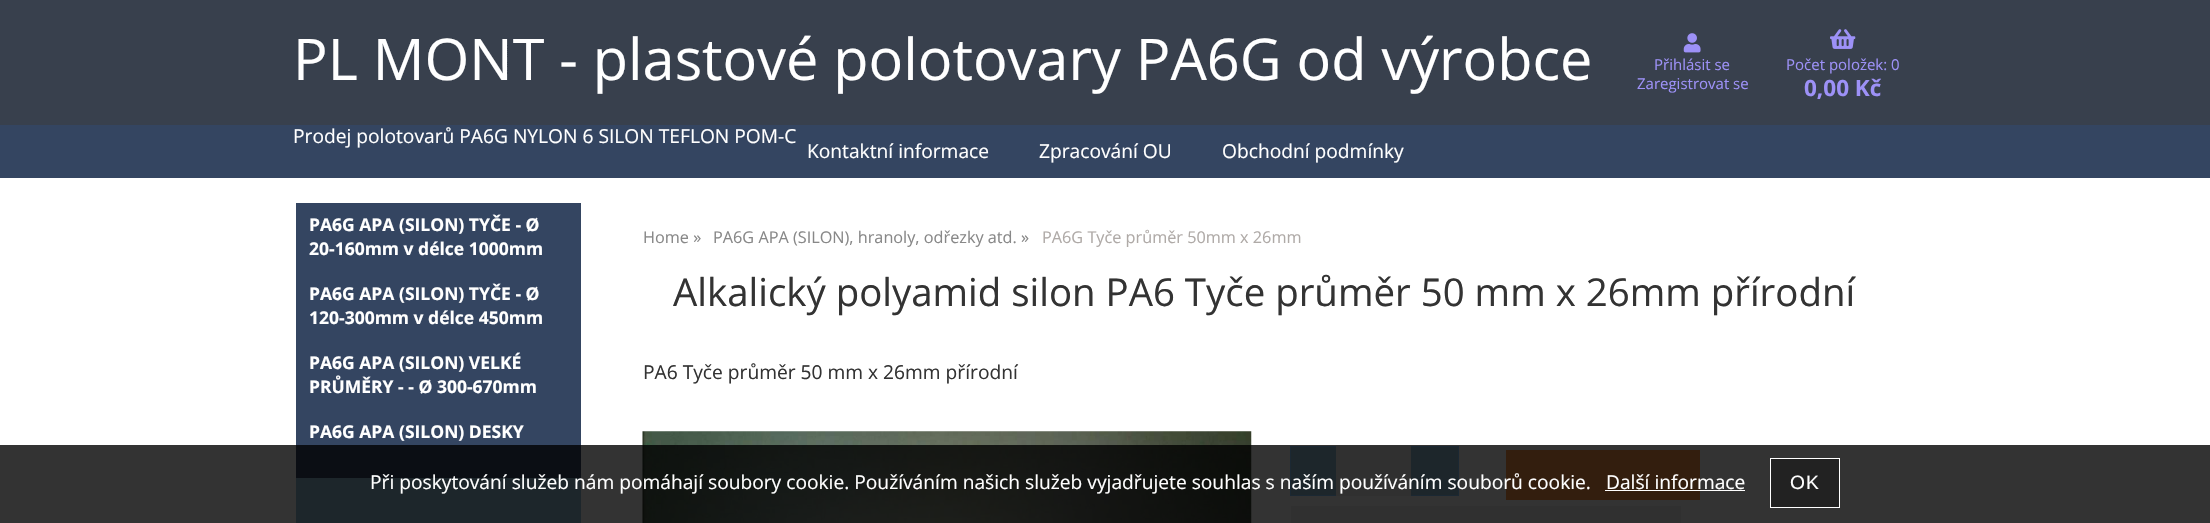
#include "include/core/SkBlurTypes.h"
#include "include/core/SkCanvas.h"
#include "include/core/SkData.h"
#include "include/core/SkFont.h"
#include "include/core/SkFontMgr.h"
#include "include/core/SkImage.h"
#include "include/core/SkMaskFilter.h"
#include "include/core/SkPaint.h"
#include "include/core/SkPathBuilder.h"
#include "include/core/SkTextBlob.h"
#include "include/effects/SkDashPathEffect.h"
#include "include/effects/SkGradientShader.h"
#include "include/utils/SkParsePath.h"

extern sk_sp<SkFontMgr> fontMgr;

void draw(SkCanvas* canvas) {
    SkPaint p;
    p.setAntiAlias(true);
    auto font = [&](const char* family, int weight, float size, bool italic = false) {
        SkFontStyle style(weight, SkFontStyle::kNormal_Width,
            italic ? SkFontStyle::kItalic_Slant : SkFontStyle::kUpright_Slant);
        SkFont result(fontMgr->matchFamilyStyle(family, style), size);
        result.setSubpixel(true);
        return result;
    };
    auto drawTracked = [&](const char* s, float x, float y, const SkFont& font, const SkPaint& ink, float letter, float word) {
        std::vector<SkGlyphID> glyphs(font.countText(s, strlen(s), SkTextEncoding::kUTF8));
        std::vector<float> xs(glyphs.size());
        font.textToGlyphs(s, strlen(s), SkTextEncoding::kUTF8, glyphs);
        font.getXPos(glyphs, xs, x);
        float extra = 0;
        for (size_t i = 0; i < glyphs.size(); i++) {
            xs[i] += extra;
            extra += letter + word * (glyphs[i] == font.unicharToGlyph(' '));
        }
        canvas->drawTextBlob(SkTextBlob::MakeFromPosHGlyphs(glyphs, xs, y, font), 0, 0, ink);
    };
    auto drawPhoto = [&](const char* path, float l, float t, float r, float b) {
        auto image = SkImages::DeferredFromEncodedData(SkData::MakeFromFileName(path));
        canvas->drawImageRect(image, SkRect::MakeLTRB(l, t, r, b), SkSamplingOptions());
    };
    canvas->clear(0xFFFFFFFF);
    p.setColor(0xFF38404D);
    canvas->drawRect(SkRect::MakeLTRB(0, 0, 2210, 125), p);
    auto font1 = font("Open Sans", 400, 57.6f);
    p.setColor(0xFFFFFFFF);
    canvas->drawString("PL MONT - plastové polotovary PA6G od výrobce", 293, 80, font1, p);
    drawPhoto("media/1.png", 1683, 33, 1701, 53);
    auto font2 = font("Open Sans", 400, 15);
    p.setColor(0xFF9D91F7);
    {
        const struct { const char* s; float x, y; } items[] = {
            {"Přihlásit se", 1654, 70},
            {"Zaregistrovat se", 1637, 89},
            {"Počet položek: 0", 1786, 70},
        };
        for (auto [s, x, y] : items) {
            canvas->drawString(s, x, y, font2, p);
        }
    }
    drawPhoto("media/2.png", 1830, 29, 1856, 49);
    auto font3 = font("Open Sans", 700, 22.5f);
    canvas->drawString("0,00 Kč", 1804, 96, font3, p);
    p.setColor(0xFF344561);
    canvas->drawRect(SkRect::MakeLTRB(0, 125, 2210, 178), p);
    auto font4 = font("Open Sans", 400, 19.2f);
    p.setColor(0xFFFFFFFF);
    {
        const struct { const char* s; float x, y; } items[] = {
            {"Prodej polotovarů PA6G NYLON 6 SILON TEFLON POM-C", 293, 143},
            {"Kontaktní informace", 807, 158},
            {"Zpracování OU", 1039, 158},
            {"Obchodní podmínky", 1222, 158},
        };
        for (auto [s, x, y] : items) {
            canvas->drawString(s, x, y, font4, p);
        }
    }
    p.setColor(0xFF344561);
    canvas->drawRect(SkRect::MakeLTRB(296, 203, 581, 478), p);
    auto font5 = font("Open Sans", 700, 17.5f);
    p.setColor(0xFFFFFFFF);
    {
        const struct { const char* s; float x, y; } items[] = {
            {"PA6G APA (SILON) TYČE - Ø", 309, 231},
            {"20-160mm v délce 1000mm", 309, 255},
            {"PA6G APA (SILON) TYČE - Ø", 309, 300},
            {"120-300mm v délce 450mm", 309, 324},
            {"PA6G APA (SILON) VELKÉ", 309, 369},
            {"PRŮMĚRY - - Ø 300-670mm", 309, 393},
            {"PA6G APA (SILON) DESKY", 309, 438},
        };
        for (auto [s, x, y] : items) {
            canvas->drawString(s, x, y, font5, p);
        }
    }
    p.setColor(0xFF91BED5);
    canvas->drawRect(SkRect::MakeLTRB(296, 478, 581, 523), p);
    auto font6 = font("Open Sans", 400, 16.25f);
    p.setColor(0xFF888888);
    canvas->drawString("Home »", 643, 243, font6, p);
    canvas->drawString("PA6G APA (SILON), hranoly, odřezky atd. »", 713, 243, font6, p);
    p.setColor(0xFFAFAAA7);
    canvas->drawString("PA6G Tyče průměr 50mm x 26mm", 1042, 243, font6, p);
    auto font7 = font("Open Sans", 400, 38.4f);
    p.setColor(0xFF333333);
    canvas->drawString("Alkalický polyamid silon PA6 Tyče průměr 50 mm x 26mm přírodní", 673, 306, font7, p);
    canvas->drawString("PA6 Tyče průměr 50 mm x 26mm přírodní", 643, 379, font4, p);
    drawPhoto("media/3.png", 642, 431, 1252, 523);
    {
        const struct { float l, t, r, b; SkColor color; } items[] = {
            {1291, 447, 1336, 495, 0xFF91BED5},
            {1290, 446, 1336, 447, 0xFF85C8FF},
            {1290, 495, 1336, 496, 0xFF85C8FF},
            {1290, 446, 1291, 496, 0xFF85C8FF},
            {1336, 446, 1411, 496, 0xFFEEEEEE},
            {1411, 447, 1458, 495, 0xFF91BED5},
            {1411, 446, 1459, 447, 0xFF85C8FF},
            {1458, 446, 1459, 496, 0xFF85C8FF},
            {1411, 495, 1459, 496, 0xFF85C8FF},
            {1506, 450, 1700, 500, 0xFFFF9442},
            {1291, 506, 1681, 523, 0xFFEEEEEE},
            {0, 445, 2210, 523, 0xCC000000},
        };
        for (auto [l, t, r, b, color] : items) {
            p.setColor(color);
            canvas->drawRect(SkRect::MakeLTRB(l, t, r, b), p);
        }
    }
    p.setColor(0xFFFFFFFF);
    canvas->drawString("Při poskytování služeb nám pomáhají soubory cookie. Používáním našich služeb vyjadřujete souhlas s naším používáním souborů cookie.", 370, 489, font4, p);
    canvas->drawString("Další informace", 1606, 489, font4, p);
    canvas->drawRect(SkRect::MakeLTRB(1605, 490, 1745, 491), p);
    p.setColor(0xFF222222);
    canvas->drawRect(SkRect::MakeLTRB(1770.5f, 458.5f, 1839.5f, 507.5f), p);
    p.setStyle(SkPaint::kStroke_Style);
    p.setStrokeWidth(1);
    p.setColor(0xFFFFFFFF);
    canvas->drawRect(SkRect::MakeLTRB(1770.5f, 458.5f, 1839.5f, 507.5f), p);
    auto font8 = font("Liberation Sans", 400, 19.2f);
    p.setStyle(SkPaint::kFill_Style);
    drawTracked("OK", 1790, 489, font8, p, 1, 0);
}
